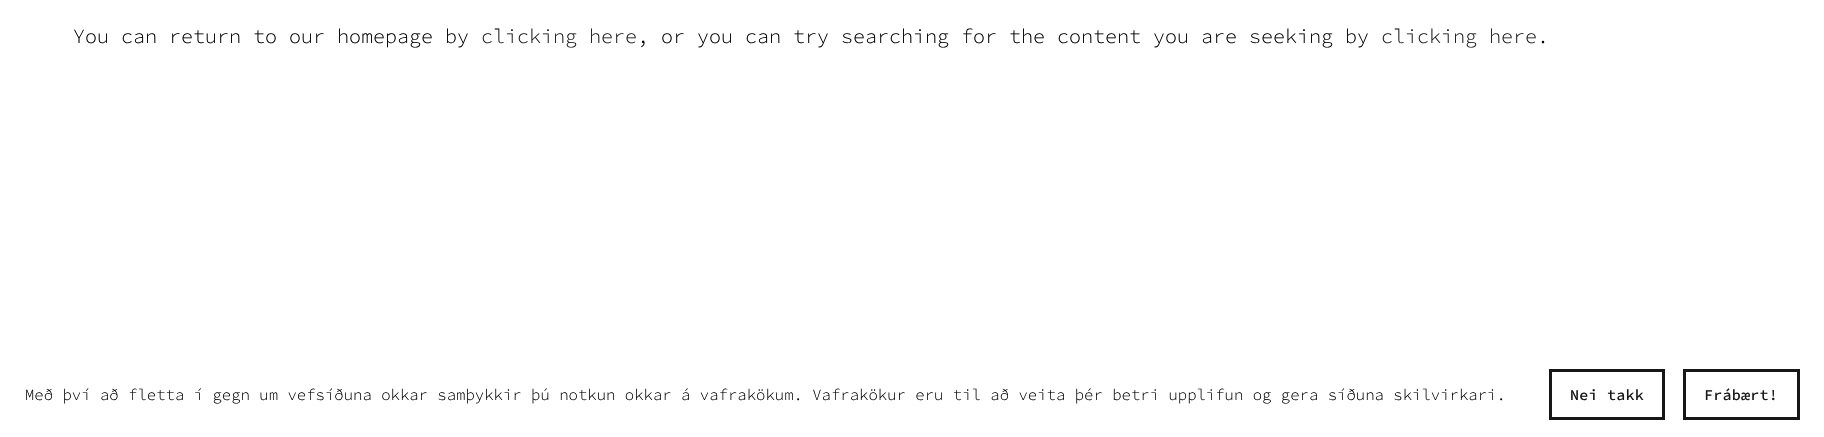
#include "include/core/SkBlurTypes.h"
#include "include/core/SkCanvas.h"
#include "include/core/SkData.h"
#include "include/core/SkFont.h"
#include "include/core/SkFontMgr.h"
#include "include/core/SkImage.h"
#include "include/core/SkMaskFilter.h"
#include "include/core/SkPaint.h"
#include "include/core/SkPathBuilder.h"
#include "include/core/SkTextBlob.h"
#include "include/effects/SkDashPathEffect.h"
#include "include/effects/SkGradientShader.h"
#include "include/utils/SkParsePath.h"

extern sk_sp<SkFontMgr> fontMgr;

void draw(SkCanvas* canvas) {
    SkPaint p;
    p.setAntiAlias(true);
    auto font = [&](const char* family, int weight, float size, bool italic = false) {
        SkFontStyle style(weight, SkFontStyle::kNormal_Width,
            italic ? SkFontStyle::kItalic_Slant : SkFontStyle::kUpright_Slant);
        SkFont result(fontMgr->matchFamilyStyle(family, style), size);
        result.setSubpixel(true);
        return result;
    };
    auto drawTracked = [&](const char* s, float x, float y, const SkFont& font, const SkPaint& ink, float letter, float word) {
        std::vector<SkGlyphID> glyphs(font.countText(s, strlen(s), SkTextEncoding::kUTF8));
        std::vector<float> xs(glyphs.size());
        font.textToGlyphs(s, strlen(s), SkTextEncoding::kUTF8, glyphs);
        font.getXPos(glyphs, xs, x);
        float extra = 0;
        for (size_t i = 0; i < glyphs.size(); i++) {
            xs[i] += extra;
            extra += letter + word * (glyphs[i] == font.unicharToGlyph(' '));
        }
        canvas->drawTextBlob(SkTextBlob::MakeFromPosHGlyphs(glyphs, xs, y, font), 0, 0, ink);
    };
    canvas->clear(0xFFFFFFFF);
    auto font1 = font("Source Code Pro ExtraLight", 300, 20);
    p.setColor(0xFF000000);
    canvas->drawString("You can return to our homepage by", 73, 43, font1, p);
    p.setColor(0xFF171717);
    canvas->drawString("clicking here", 481, 43, font1, p);
    p.setColor(0xFF000000);
    canvas->drawString(", or you can try searching for the content you are seeking by", 637, 43, font1, p);
    p.setColor(0xFF171717);
    canvas->drawString("clicking here", 1381, 43, font1, p);
    p.setColor(0xFF000000);
    canvas->drawString(".", 1537, 43, font1, p);
    auto font2 = font("Source Code Pro ExtraLight", 300, 15.62f);
    canvas->drawString("Með því að fletta í gegn um vefsíðuna okkar samþykkir þú notkun okkar á vafrakökum. Vafrakökur eru til að veita þér betri upplifun og gera síðuna skilvirkari.", 25, 400, font2, p);
    p.setStyle(SkPaint::kStroke_Style);
    p.setStrokeWidth(3);
    p.setColor(0xFF171717);
    canvas->drawRect(SkRect::MakeLTRB(1550.5f, 370.5f, 1663.5f, 418.5f), p);
    auto font3 = font("Source Code Pro ExtraLight", 500, 15);
    p.setStyle(SkPaint::kFill_Style);
    drawTracked("Nei takk", 1570, 400, font3, p, 0.25f, 0);
    p.setStyle(SkPaint::kStroke_Style);
    canvas->drawRect(SkRect::MakeLTRB(1684.5f, 370.5f, 1798.5f, 418.5f), p);
    p.setStyle(SkPaint::kFill_Style);
    drawTracked("Frábært!", 1704, 400, font3, p, 0.25f, 0);
}
